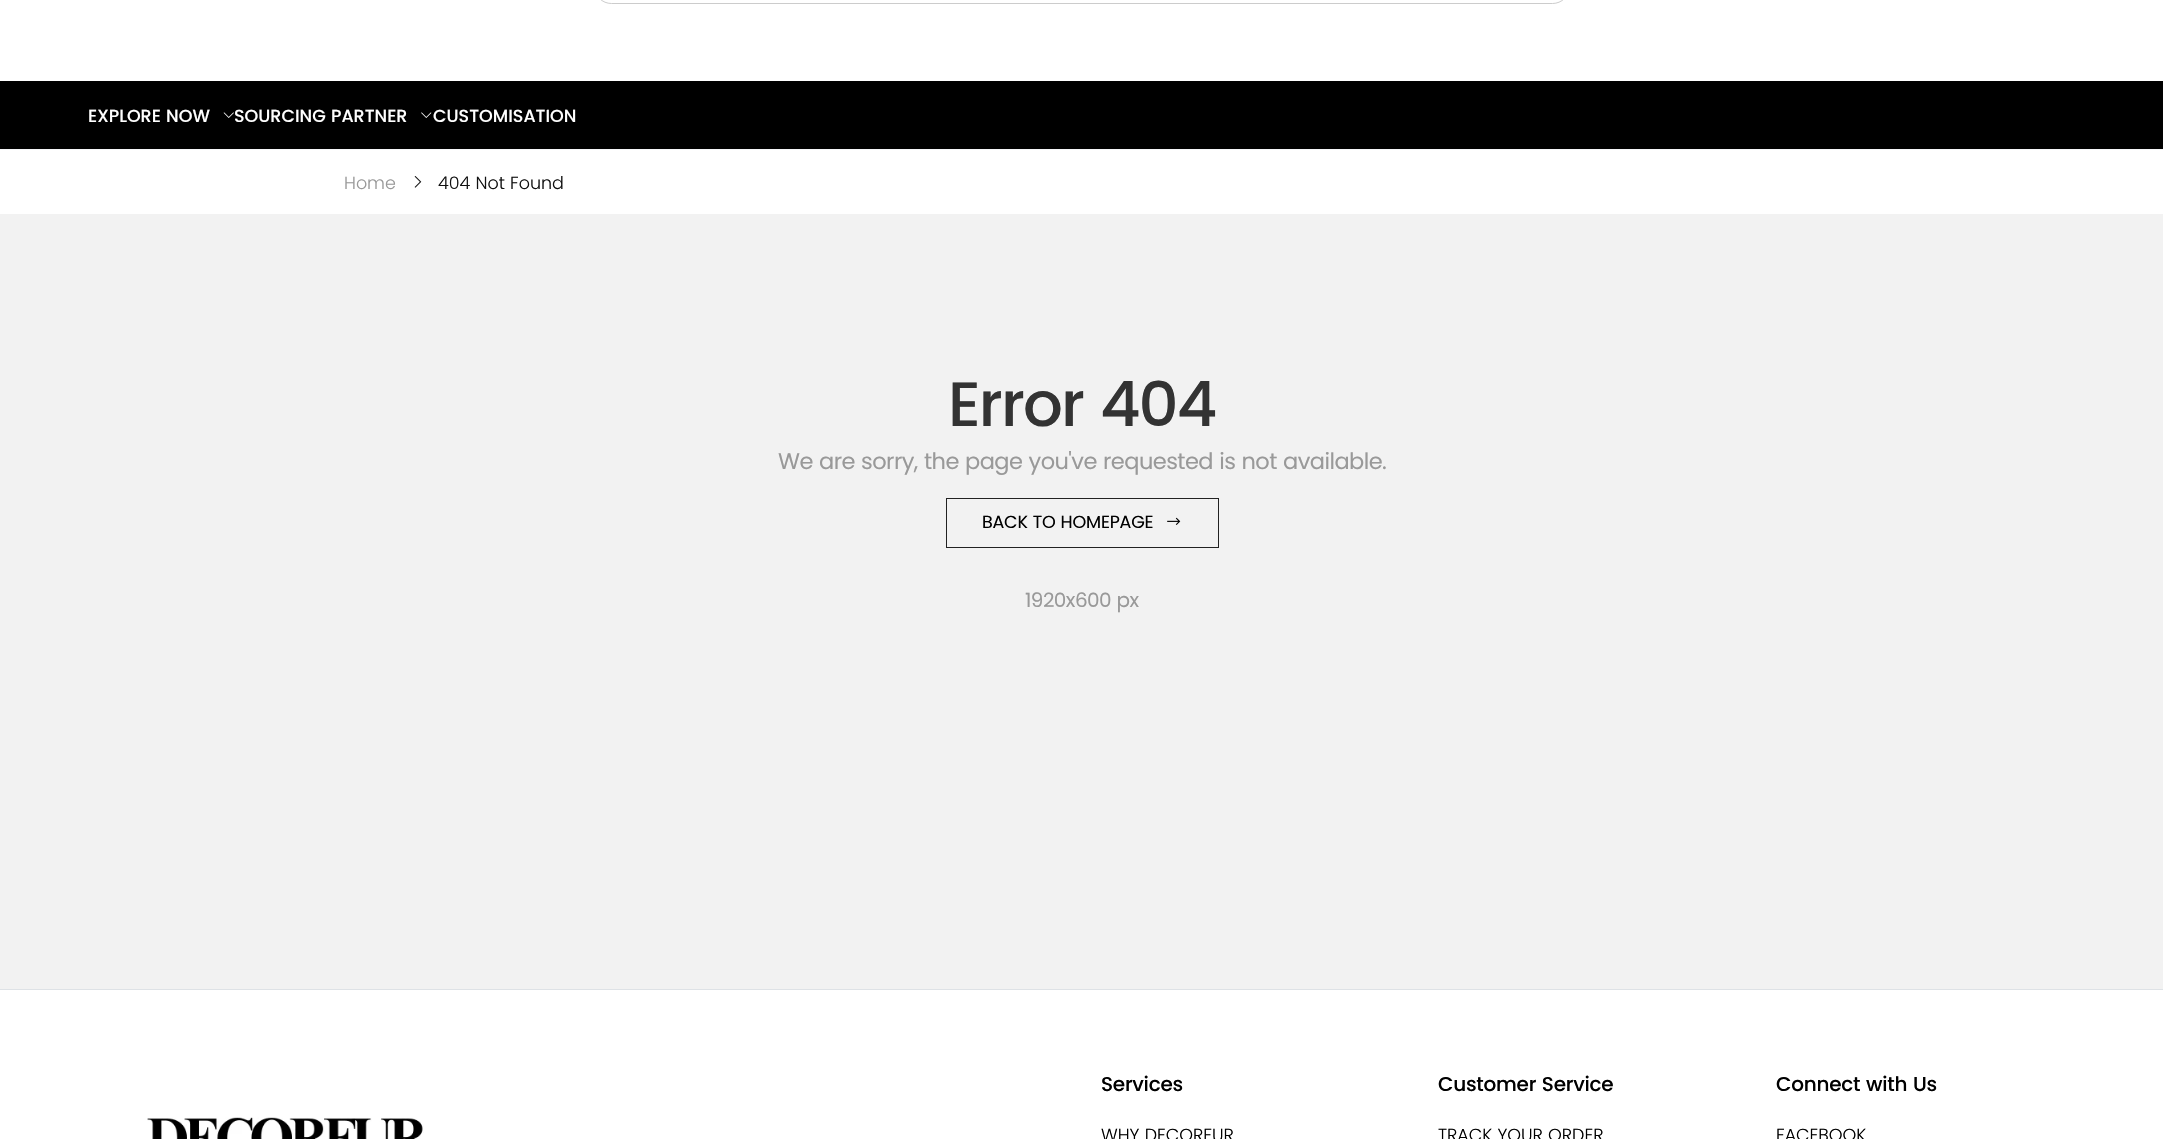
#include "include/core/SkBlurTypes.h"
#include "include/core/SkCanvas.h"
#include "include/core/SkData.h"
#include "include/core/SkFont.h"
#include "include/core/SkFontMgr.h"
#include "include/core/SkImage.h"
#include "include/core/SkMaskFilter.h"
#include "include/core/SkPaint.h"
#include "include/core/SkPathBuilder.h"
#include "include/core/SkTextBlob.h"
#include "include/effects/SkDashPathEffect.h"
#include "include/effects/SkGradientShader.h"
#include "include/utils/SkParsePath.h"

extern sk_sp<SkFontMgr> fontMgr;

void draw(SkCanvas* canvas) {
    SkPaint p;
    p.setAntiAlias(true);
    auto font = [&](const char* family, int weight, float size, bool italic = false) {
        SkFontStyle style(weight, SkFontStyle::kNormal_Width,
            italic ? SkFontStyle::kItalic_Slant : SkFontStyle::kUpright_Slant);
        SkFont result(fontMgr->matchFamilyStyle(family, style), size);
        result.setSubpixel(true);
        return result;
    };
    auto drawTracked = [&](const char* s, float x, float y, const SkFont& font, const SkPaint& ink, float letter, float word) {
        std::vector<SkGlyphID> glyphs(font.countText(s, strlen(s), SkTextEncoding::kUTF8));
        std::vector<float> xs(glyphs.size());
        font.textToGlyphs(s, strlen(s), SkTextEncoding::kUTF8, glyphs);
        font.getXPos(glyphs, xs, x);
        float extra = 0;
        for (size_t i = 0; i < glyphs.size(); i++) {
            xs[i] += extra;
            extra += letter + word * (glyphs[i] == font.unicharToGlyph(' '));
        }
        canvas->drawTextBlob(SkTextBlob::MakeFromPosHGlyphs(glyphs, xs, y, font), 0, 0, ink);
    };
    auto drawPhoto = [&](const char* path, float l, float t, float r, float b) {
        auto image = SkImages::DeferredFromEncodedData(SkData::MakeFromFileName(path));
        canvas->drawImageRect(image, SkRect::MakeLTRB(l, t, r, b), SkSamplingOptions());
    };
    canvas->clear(0xFFFFFFFF);
    p.setStyle(SkPaint::kStroke_Style);
    p.setStrokeWidth(1);
    p.setColor(0xFFCCCCCC);
    canvas->drawRoundRect(SkRect::MakeLTRB(594.5f, -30.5f, 1569.5f, 3.5f), 29.5f, 29.5f, p);
    p.setStyle(SkPaint::kFill_Style);
    p.setColor(0xFF000000);
    canvas->drawRect(SkRect::MakeLTRB(0, 81, 2163, 149), p);
    auto font1 = font("Poppins", 500, 17.5f);
    p.setColor(0xFFFFFFFF);
    canvas->drawString("EXPLORE NOW", 88, 122, font1, p);
    drawPhoto("media/1.png", 223, 112, 234, 118);
    canvas->drawString("SOURCING PARTNER", 234, 122, font1, p);
    drawPhoto("media/2.png", 421, 112, 432, 118);
    canvas->drawString("CUSTOMISATION", 433, 122, font1, p);
    p.setColor(0xFFF5F6F8);
    canvas->drawRect(SkRect::MakeLTRB(0, 149, 2163, 150), p);
    auto font2 = font("Poppins", 300, 17.5f);
    p.setColor(0xFF999999);
    canvas->drawString("Home", 344, 189, font2, p);
    drawPhoto("media/3.png", 414, 176, 422, 188);
    p.setColor(0xFF111111);
    canvas->drawString("404 Not Found", 438, 189, font2, p);
    p.setColor(0xFFF2F2F2);
    canvas->drawRect(SkRect::MakeLTRB(0, 214, 2163, 989), p);
    auto font3 = font("Poppins", 500, 62.5f);
    p.setColor(0xFF333333);
    drawTracked("Error 404", 948, 426, font3, p, -1.9f, 0);
    auto font4 = font("Poppins", 400, 22.5f);
    p.setColor(0xFF999999);
    drawTracked("We are sorry, the page you've requested is not available.", 778, 469, font4, p, -0.55f, 0);
    p.setStyle(SkPaint::kStroke_Style);
    p.setColor(0xFF222222);
    canvas->drawRect(SkRect::MakeLTRB(946.5f, 498.5f, 1218.5f, 547.5f), p);
    auto font5 = font("Poppins", 400, 17.5f);
    p.setStyle(SkPaint::kFill_Style);
    p.setColor(0xFF000000);
    drawTracked("BACK TO HOMEPAGE", 982, 528, font5, p, -0.2f, 0);
    drawPhoto("media/4.png", 1167, 517, 1181, 525);
    auto font6 = font("Poppins", 400, 20);
    p.setColor(0xFF999999);
    drawTracked("1920x600 px", 1025, 607, font6, p, -0.55f, 0);
    p.setColor(0xFFDEE2E6);
    canvas->drawRect(SkRect::MakeLTRB(0, 989, 2163, 990), p);
    drawPhoto("media/5.png", 147, 1117, 424, 1139);
    auto font7 = font("Poppins", 500, 20);
    p.setColor(0xFF000000);
    drawTracked("Services", 1101, 1091, font7, p, -0.25f, 0);
    canvas->drawString("WHY DECORFUR", 1101, 1141, font2, p);
    drawTracked("Customer Service", 1438, 1091, font7, p, -0.25f, 0);
    canvas->drawString("TRACK YOUR ORDER", 1438, 1141, font2, p);
    drawTracked("Connect with Us", 1776, 1091, font7, p, -0.25f, 0);
    canvas->drawString("FACEBOOK", 1776, 1141, font2, p);
}
